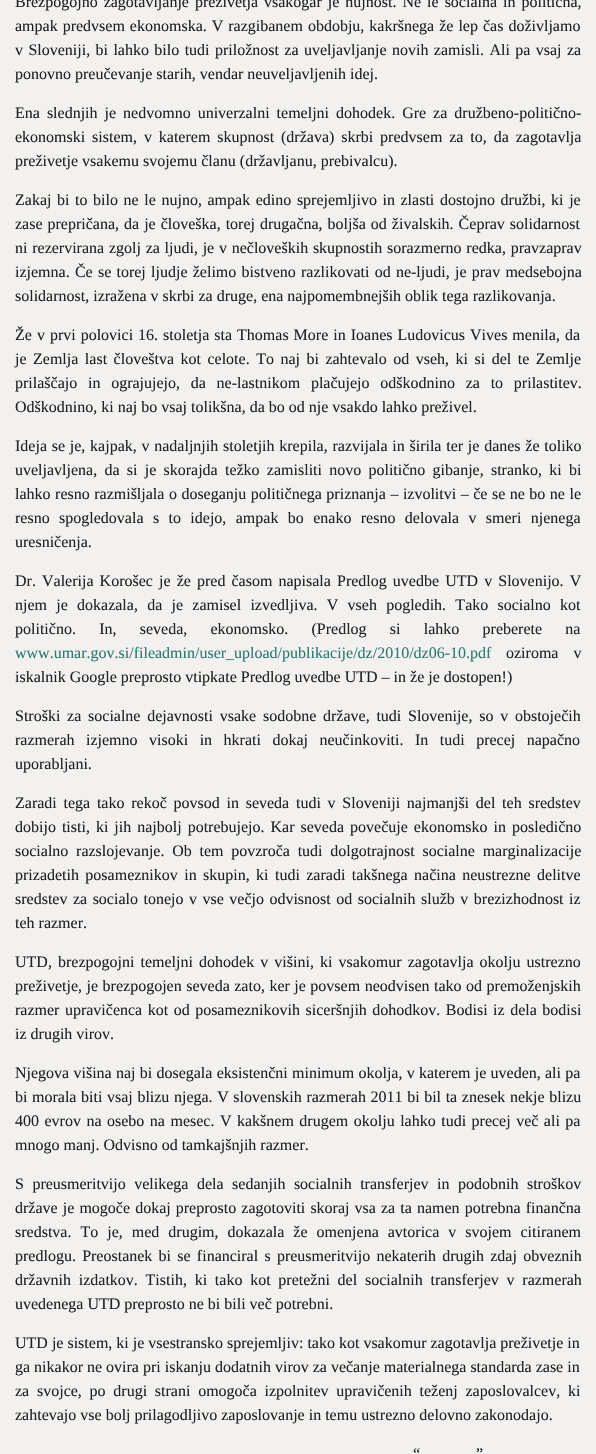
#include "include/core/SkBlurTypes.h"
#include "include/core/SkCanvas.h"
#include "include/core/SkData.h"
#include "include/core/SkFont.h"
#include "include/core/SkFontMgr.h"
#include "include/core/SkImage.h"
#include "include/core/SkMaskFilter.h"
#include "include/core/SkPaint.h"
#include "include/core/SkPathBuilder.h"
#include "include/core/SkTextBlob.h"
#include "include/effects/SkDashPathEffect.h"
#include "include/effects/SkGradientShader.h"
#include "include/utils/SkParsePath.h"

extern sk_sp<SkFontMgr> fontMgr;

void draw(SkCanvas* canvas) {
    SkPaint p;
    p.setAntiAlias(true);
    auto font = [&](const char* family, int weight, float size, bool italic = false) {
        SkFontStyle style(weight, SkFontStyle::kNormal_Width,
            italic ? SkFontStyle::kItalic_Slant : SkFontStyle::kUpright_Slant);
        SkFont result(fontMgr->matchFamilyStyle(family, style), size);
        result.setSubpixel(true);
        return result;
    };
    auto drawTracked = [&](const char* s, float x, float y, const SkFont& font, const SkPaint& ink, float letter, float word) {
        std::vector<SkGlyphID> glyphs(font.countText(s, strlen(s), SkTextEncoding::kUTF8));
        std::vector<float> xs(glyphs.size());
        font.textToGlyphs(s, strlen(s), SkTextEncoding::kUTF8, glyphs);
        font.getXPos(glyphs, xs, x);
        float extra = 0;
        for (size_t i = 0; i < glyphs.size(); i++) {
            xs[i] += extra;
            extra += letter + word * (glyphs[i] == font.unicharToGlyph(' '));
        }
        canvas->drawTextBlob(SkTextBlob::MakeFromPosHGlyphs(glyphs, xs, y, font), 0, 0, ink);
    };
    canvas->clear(0xFFF2F1EF);
    auto font1 = font("Liberation Serif", 400, 16);
    p.setColor(0xFF222222);
    drawTracked("Brezpogojno zagotavljanje preživetja vsakogar je nujnost. Ne le socialna in politična,", 15, 7, font1, p, 0, 2);
    drawTracked("ampak predvsem ekonomska. V razgibanem obdobju, kakršnega že lep čas doživljamo", 15, 31, font1, p, 0, 1);
    drawTracked("v Sloveniji, bi lahko bilo tudi priložnost za uveljavljanje novih zamisli. Ali pa vsaj za", 15, 55, font1, p, 0, 1.4f);
    canvas->drawString("ponovno preučevanje starih, vendar neuveljavljenih idej.", 15, 79, font1, p);
    drawTracked("Ena slednjih je nedvomno univerzalni temeljni dohodek. Gre za družbeno-politično-", 15, 118, font1, p, 0, 3);
    drawTracked("ekonomski sistem, v katerem skupnost (država) skrbi predvsem za to, da zagotavlja", 15, 142, font1, p, 0, 2.9f);
    canvas->drawString("preživetje vsakemu svojemu članu (državljanu, prebivalcu).", 15, 166, font1, p);
    drawTracked("Zakaj bi to bilo ne le nujno, ampak edino sprejemljivo in zlasti dostojno družbi, ki je", 15, 205, font1, p, 0, 1.6f);
    drawTracked("zase prepričana, da je človeška, torej drugačna, boljša od živalskih. Čeprav solidarnost", 15, 229, font1, p, 0, 1);
    drawTracked("ni rezervirana zgolj za ljudi, je v nečloveških skupnostih sorazmerno redka, pravzaprav", 15, 253, font1, p, 0, 0.75f);
    drawTracked("izjemna. Če se torej ljudje želimo bistveno razlikovati od ne-ljudi, je prav medsebojna", 15, 277, font1, p, 0, 1.25f);
    canvas->drawString("solidarnost, izražena v skrbi za druge, ena najpomembnejših oblik tega razlikovanja.", 15, 301, font1, p);
    drawTracked("Že v prvi polovici 16. stoletja sta Thomas More in Ioanes Ludovicus Vives menila, da", 15, 340, font1, p, 0, 1);
    drawTracked("je Zemlja last človeštva kot celote. To naj bi zahtevalo od vseh, ki si del te Zemlje", 15, 364, font1, p, 0, 2.5f);
    drawTracked("prilaščajo in ograjujejo, da ne-lastnikom plačujejo odškodnino za to prilastitev.", 15, 388, font1, p, 0, 6.75f);
    canvas->drawString("Odškodnino, ki naj bo vsaj tolikšna, da bo od nje vsakdo lahko preživel.", 15, 412, font1, p);
    drawTracked("Ideja se je, kajpak, v nadaljnjih stoletjih krepila, razvijala in širila ter je danes že toliko", 15, 451, font1, p, 0, 0.75f);
    drawTracked("uveljavljena, da si je skorajda težko zamisliti novo politično gibanje, stranko, ki bi", 15, 475, font1, p, 0, 3.25f);
    drawTracked("lahko resno razmišljala o doseganju političnega priznanja – izvolitvi – če se ne bo ne le", 15, 499, font1, p, 0, 0.5f);
    drawTracked("resno spogledovala s to idejo, ampak bo enako resno delovala v smeri njenega", 15, 523, font1, p, 0, 5.4f);
    canvas->drawString("uresničenja.", 15, 547, font1, p);
    drawTracked("Dr. Valerija Korošec je že pred časom napisala Predlog uvedbe UTD v Slovenijo. V", 15, 586, font1, p, 0, 2.1f);
    drawTracked("njem je dokazala, da je zamisel izvedljiva. V vseh pogledih. Tako socialno kot", 15, 610, font1, p, 0, 5.25f);
    drawTracked("politično. In, seveda, ekonomsko. (Predlog si lahko preberete na", 15, 634, font1, p, 0, 19.25f);
    p.setColor(0xFF2B7871);
    canvas->drawString("www.umar.gov.si/fileadmin/user_upload/publikacije/dz/2010/dz06-10.pdf", 15, 658, font1, p);
    p.setColor(0xFF222222);
    drawTracked("oziroma v", 506, 658, font1, p, 0, 11);
    canvas->drawString("iskalnik Google preprosto vtipkate Predlog uvedbe UTD – in že je dostopen!)", 15, 682, font1, p);
    drawTracked("Stroški za socialne dejavnosti vsake sodobne države, tudi Slovenije, so v obstoječih", 15, 721, font1, p, 0, 2.75f);
    drawTracked("razmerah izjemno visoki in hkrati dokaj neučinkoviti. In tudi precej napačno", 15, 745, font1, p, 0, 7.5f);
    canvas->drawString("uporabljani.", 15, 769, font1, p);
    drawTracked("Zaradi tega tako rekoč povsod in seveda tudi v Sloveniji najmanjši del teh sredstev", 15, 808, font1, p, 0, 2.75f);
    drawTracked("dobijo tisti, ki jih najbolj potrebujejo. Kar seveda povečuje ekonomsko in posledično", 15, 832, font1, p, 0, 2);
    drawTracked("socialno razslojevanje. Ob tem povzroča tudi dolgotrajnost socialne marginalizacije", 15, 856, font1, p, 0, 3.75f);
    drawTracked("prizadetih posameznikov in skupin, ki tudi zaradi takšnega načina neustrezne delitve", 15, 880, font1, p, 0, 2.4f);
    drawTracked("sredstev za socialo tonejo v vse večjo odvisnost od socialnih služb v brezizhodnost iz", 15, 904, font1, p, 0, 1.5f);
    canvas->drawString("teh razmer.", 15, 928, font1, p);
    drawTracked("UTD, brezpogojni temeljni dohodek v višini, ki vsakomur zagotavlja okolju ustrezno", 15, 967, font1, p, 0, 2.1f);
    drawTracked("preživetje, je brezpogojen seveda zato, ker je povsem neodvisen tako od premoženjskih", 15, 991, font1, p, 0, 0.5f);
    drawTracked("razmer upravičenca kot od posameznikovih siceršnjih dohodkov. Bodisi iz dela bodisi", 15, 1015, font1, p, 0, 1.5f);
    canvas->drawString("iz drugih virov.", 15, 1039, font1, p);
    drawTracked("Njegova višina naj bi dosegala eksistenčni minimum okolja, v katerem je uveden, ali pa", 15, 1078, font1, p, 0, 0.25f);
    drawTracked("bi morala biti vsaj blizu njega. V slovenskih razmerah 2011 bi bil ta znesek nekje blizu", 15, 1102, font1, p, 0, 0.6f);
    drawTracked("400 evrov na osebo na mesec. V kakšnem drugem okolju lahko tudi precej več ali pa", 15, 1126, font1, p, 0, 1.5f);
    canvas->drawString("mnogo manj. Odvisno od tamkajšnjih razmer.", 15, 1150, font1, p);
    drawTracked("S preusmeritvijo velikega dela sedanjih socialnih transferjev in podobnih stroškov", 15, 1189, font1, p, 0, 4.5f);
    drawTracked("države je mogoče dokaj preprosto zagotoviti skoraj vsa za ta namen potrebna finančna", 15, 1213, font1, p, 0, 1.1f);
    drawTracked("sredstva. To je, med drugim, dokazala že omenjena avtorica v svojem citiranem", 15, 1237, font1, p, 0, 5);
    drawTracked("predlogu. Preostanek bi se financiral s preusmeritvijo nekaterih drugih zdaj obveznih", 15, 1261, font1, p, 0, 2.25f);
    drawTracked("državnih izdatkov. Tistih, ki tako kot pretežni del socialnih transferjev v razmerah", 15, 1285, font1, p, 0, 3.75f);
    {
        const struct { const char* s; float x, y; } items[] = {
            {"uvedenega UTD preprosto ne bi bili več potrebni.", 15, 1309},
            {"UTD je sistem, ki je vsestransko sprejemljiv: tako kot vsakomur zagotavlja preživetje in", 15, 1348},
            {"ga nikakor ne ovira pri iskanju dodatnih virov za večanje materialnega standarda zase in", 15, 1372},
        };
        for (auto [s, x, y] : items) {
            canvas->drawString(s, x, y, font1, p);
        }
    }
    drawTracked("za svojce, po drugi strani omogoča izpolnitev upravičenih teženj zaposlovalcev, ki", 15, 1396, font1, p, 0, 3.75f);
    canvas->drawString("zahtevajo vse bolj prilagodljivo zaposlovanje in temu ustrezno delovno zakonodajo.", 15, 1420, font1, p);
    drawTracked("“", 413, 1459, font1, p, 0, 2);
    drawTracked("”", 476, 1459, font1, p, 0, 2);
}
